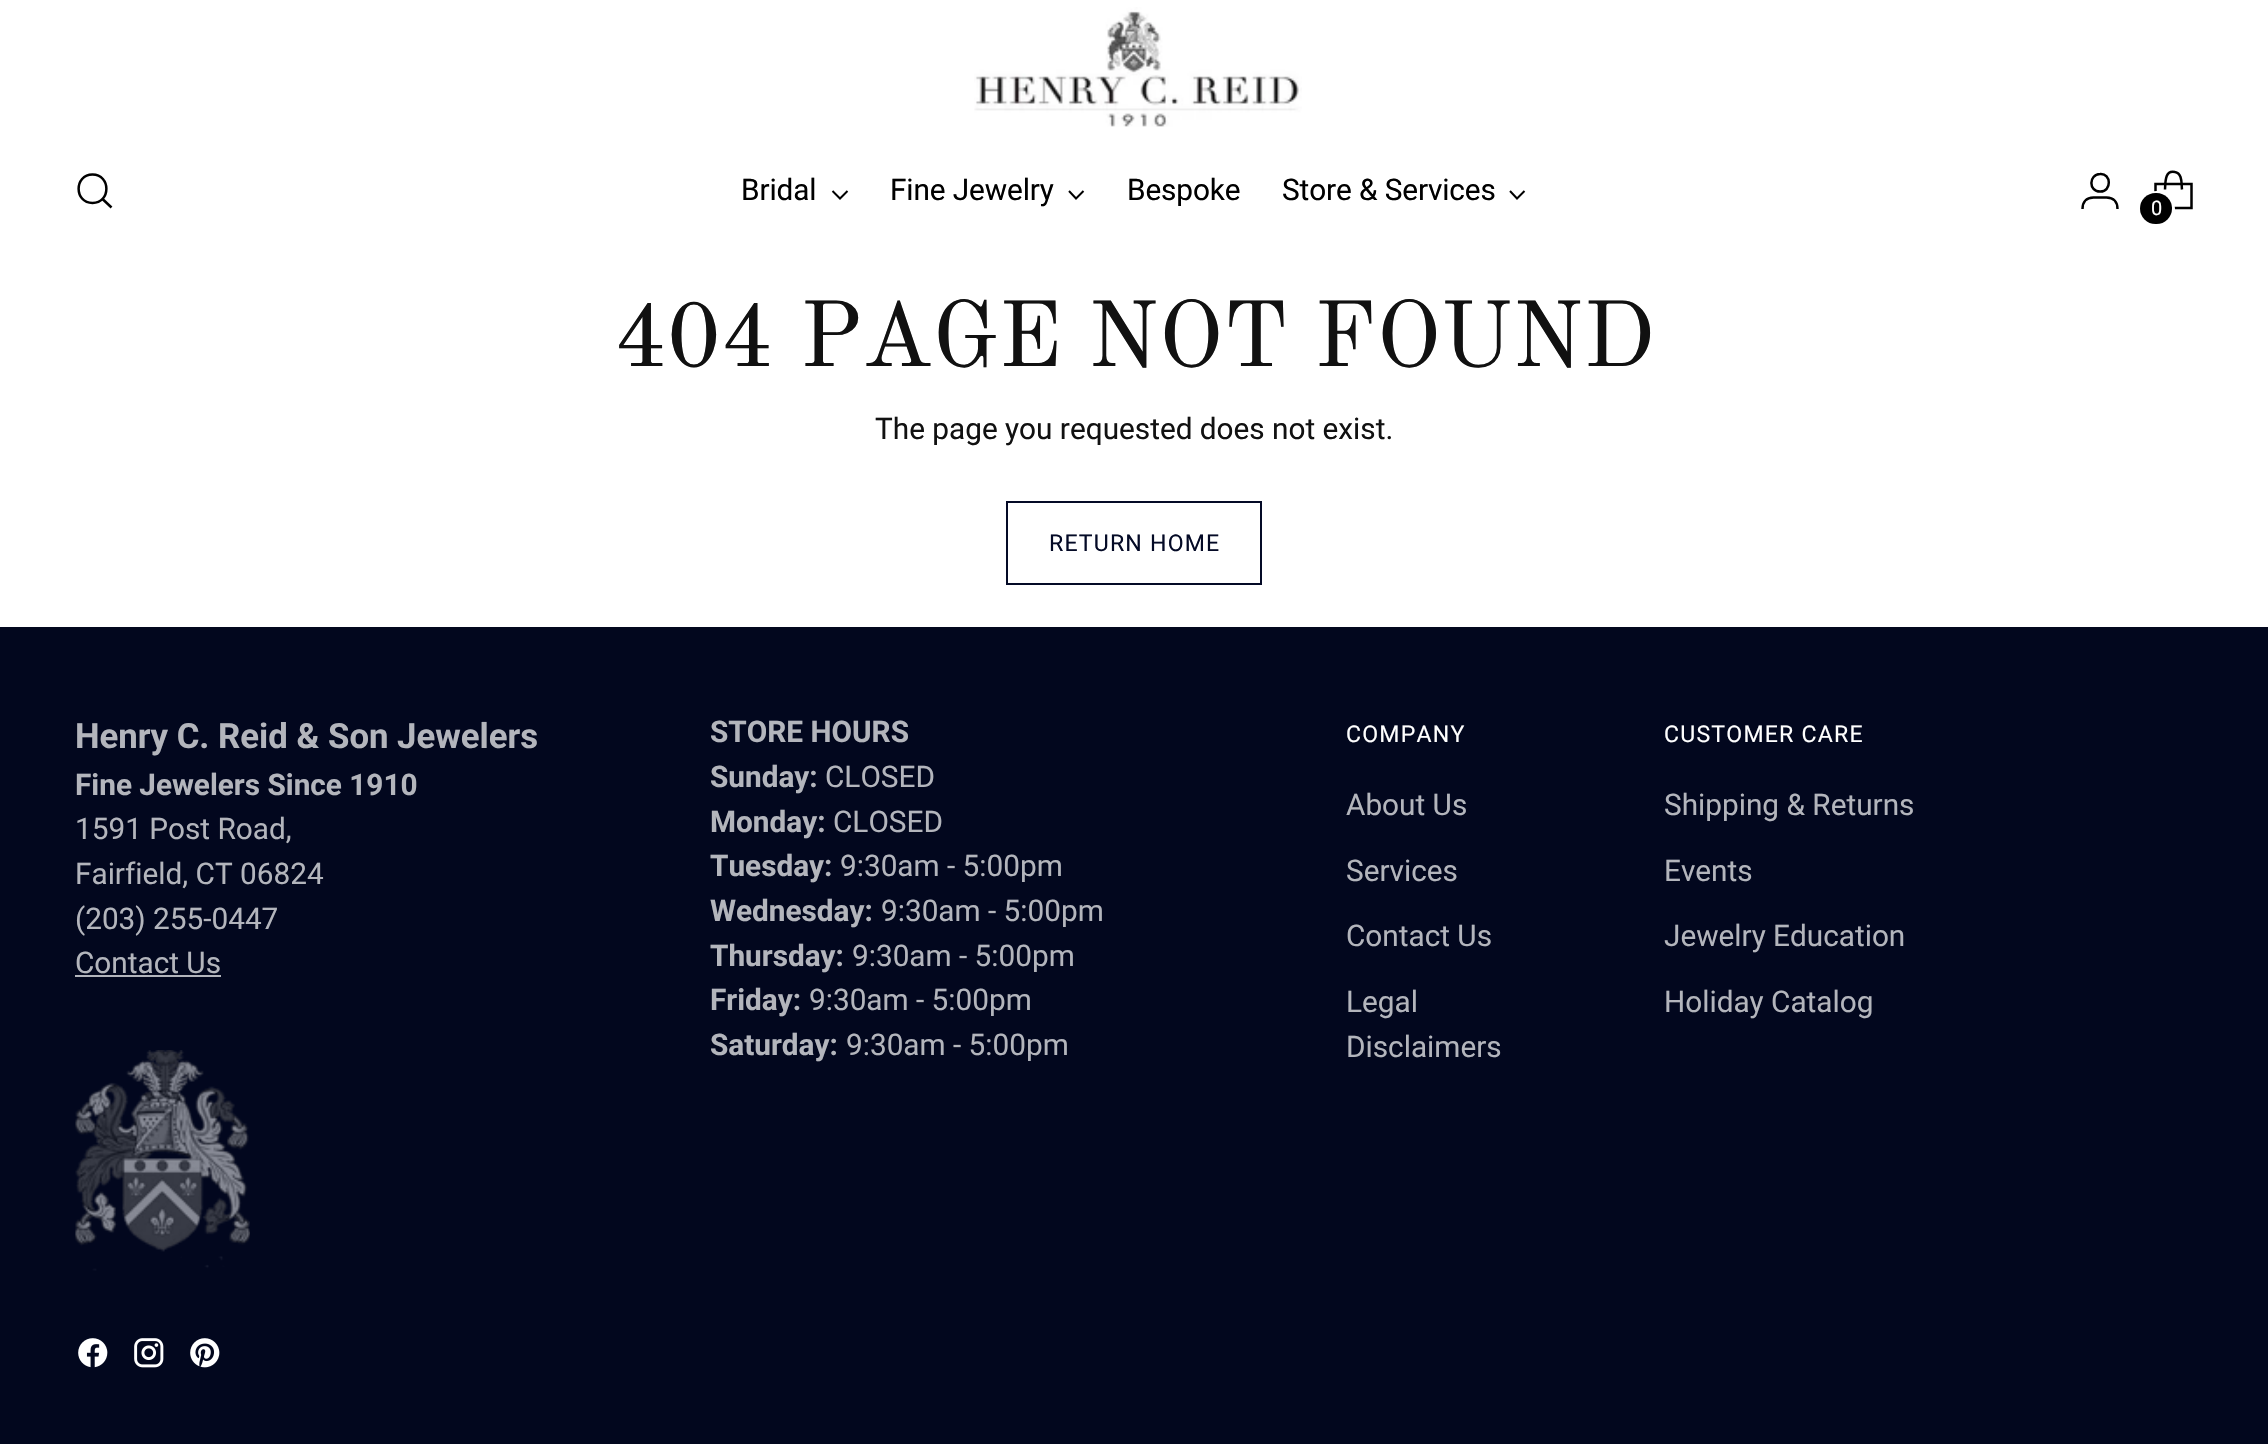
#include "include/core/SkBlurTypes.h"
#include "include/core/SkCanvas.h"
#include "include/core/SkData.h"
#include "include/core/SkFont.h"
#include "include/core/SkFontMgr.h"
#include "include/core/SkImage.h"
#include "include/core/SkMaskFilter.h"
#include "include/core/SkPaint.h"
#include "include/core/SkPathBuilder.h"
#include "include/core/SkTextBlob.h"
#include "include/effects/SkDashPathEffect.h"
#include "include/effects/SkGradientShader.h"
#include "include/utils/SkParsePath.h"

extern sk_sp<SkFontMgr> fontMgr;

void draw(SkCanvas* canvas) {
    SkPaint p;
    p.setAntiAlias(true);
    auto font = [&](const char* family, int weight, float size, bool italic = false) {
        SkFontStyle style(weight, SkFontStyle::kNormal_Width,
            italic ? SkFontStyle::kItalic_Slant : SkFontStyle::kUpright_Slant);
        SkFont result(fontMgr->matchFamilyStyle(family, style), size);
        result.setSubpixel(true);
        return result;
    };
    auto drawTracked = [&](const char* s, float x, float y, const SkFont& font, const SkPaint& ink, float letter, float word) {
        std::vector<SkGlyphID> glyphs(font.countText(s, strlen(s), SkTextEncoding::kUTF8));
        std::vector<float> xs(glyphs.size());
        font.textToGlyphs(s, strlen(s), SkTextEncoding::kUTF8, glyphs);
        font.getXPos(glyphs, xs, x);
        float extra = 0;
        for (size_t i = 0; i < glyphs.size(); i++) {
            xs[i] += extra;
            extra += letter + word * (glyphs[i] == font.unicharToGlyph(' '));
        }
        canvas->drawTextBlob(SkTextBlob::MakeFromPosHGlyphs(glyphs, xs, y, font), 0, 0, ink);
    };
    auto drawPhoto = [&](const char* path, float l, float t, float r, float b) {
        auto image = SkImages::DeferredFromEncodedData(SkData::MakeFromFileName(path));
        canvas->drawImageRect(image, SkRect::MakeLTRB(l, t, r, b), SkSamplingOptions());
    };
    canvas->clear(0xFFFFFFFF);
    drawPhoto("media/1.png", 974, 7, 1302, 127);
    p.setStyle(SkPaint::kStroke_Style);
    p.setStrokeWidth(2.5f);
    p.setStrokeCap(SkPaint::kRound_Cap);
    p.setColor(0xFF000000);
    canvas->drawPath(SkPathBuilder().moveTo(92.5f, 203).cubicTo(111, 203, 111, 174.5f, 92.5f, 174.5f).cubicTo(74, 174.5f, 74, 203, 92.5f, 203).close().detach(), p);
    p.setStrokeCap(SkPaint::kButt_Cap);
    canvas->drawPath(SkPathBuilder().moveTo(102.5f, 199).lineTo(111.5f, 207.5f).detach(), p);
    auto font1 = font("Roboto", 400, 29.75f);
    p.setStyle(SkPaint::kFill_Style);
    drawTracked("Bridal", 741, 200, font1, p, -0.1f, 0);
    p.setStyle(SkPaint::kStroke_Style);
    p.setStrokeWidth(2);
    canvas->drawPath(SkPathBuilder().moveTo(832.5f, 191).lineTo(840, 198.5f).lineTo(847.5f, 191).detach(), p);
    p.setStyle(SkPaint::kFill_Style);
    drawTracked("Fine Jewelry", 890, 200, font1, p, -0.1f, 0);
    p.setStyle(SkPaint::kStroke_Style);
    canvas->drawPath(SkPathBuilder().moveTo(1069, 191).lineTo(1076, 198.5f).lineTo(1083.5f, 191).detach(), p);
    p.setStyle(SkPaint::kFill_Style);
    drawTracked("Bespoke", 1127, 200, font1, p, -0.1f, 0);
    drawTracked("Store & Services", 1282, 200, font1, p, -0.1f, 0);
    p.setStyle(SkPaint::kStroke_Style);
    canvas->drawPath(SkPathBuilder().moveTo(1510, 191).lineTo(1517, 198.5f).lineTo(1524.5f, 191).detach(), p);
    p.setStrokeWidth(2.5f);
    canvas->drawPath(SkPathBuilder().moveTo(2100, 191.5f).cubicTo(2112, 192, 2111.5f, 173, 2100, 174).cubicTo(2088.5f, 174.5f, 2088.5f, 191.5f, 2100, 191.5f).close().moveTo(2082.5f, 209).cubicTo(2082.5f, 202.5f, 2086, 197.5f, 2093.5f, 197.5f).lineTo(2106.5f, 197.5f).cubicTo(2114, 197.5f, 2117.5f, 202.5f, 2117.5f, 209).detach(), p);
    p.setStrokeJoin(SkPaint::kBevel_Join);
    canvas->drawPath(SkPathBuilder().moveTo(2182, 189.5f).cubicTo(2181.5f, 185.5f, 2182, 181, 2180.5f, 177).cubicTo(2179.5f, 174.5f, 2178, 172.5f, 2175, 172).cubicTo(2164.5f, 169.5f, 2165.5f, 183, 2165, 189.5f).detach(), p);
    p.setStrokeJoin(SkPaint::kMiter_Join);
    canvas->drawPath(SkPathBuilder().moveTo(2191.5f, 208).lineTo(2191.5f, 184).lineTo(2155.5f, 184).lineTo(2155.5f, 208).close().detach(), p);
    p.setStrokeWidth(3);
    p.setColor(0xFFFFFFFF);
    canvas->drawRoundRect(SkRect::MakeLTRB(2140.5f, 192.5f, 2173.5f, 226.5f), 16.5f, 16.5f, p);
    p.setStyle(SkPaint::kFill_Style);
    p.setColor(0xFF000000);
    canvas->drawRoundRect(SkRect::MakeLTRB(2140, 193, 2172, 224), 15.5f, 15.5f, p);
    auto font2 = font("Roboto", 400, 20);
    p.setColor(0xFFFFFFFF);
    canvas->drawString("0", 2151, 215, font2, p);
    auto font3 = font("Old Standard TT", 400, 91.9f);
    p.setColor(0xFF111111);
    canvas->drawString("404 PAGE NOT FOUND", 614, 366, font3, p);
    canvas->drawString("The page you requested does not exist.", 875, 439, font1, p);
    p.setStyle(SkPaint::kStroke_Style);
    p.setStrokeWidth(2);
    p.setColor(0xFF040A26);
    canvas->drawRect(SkRect::MakeLTRB(1007, 502, 1261, 584), p);
    auto font4 = font("Roboto", 400, 23.1f);
    p.setStyle(SkPaint::kFill_Style);
    drawTracked("RETURN HOME", 1049, 551, font4, p, 1.2f, 0);
    p.setColor(0xFF02071E);
    canvas->drawRect(SkRect::MakeLTRB(0, 627, 2268, 1444), p);
    auto font5 = font("Roboto", 700, 34.75f);
    p.setColor(0xFFB3B5BC);
    canvas->drawString("Henry C. Reid & Son Jewelers", 75, 748, font5, p);
    auto font6 = font("Roboto", 700, 29.75f);
    canvas->drawString("Fine Jewelers Since 1910", 75, 795, font6, p);
    {
        const struct { const char* s; float x, y; } items[] = {
            {"1591 Post Road,", 75, 839},
            {"Fairfield, CT 06824", 75, 884},
            {"(203) 255-0447", 75, 929},
            {"Contact Us", 75, 973},
        };
        for (auto [s, x, y] : items) {
            canvas->drawString(s, x, y, font1, p);
        }
    }
    canvas->drawRect(SkRect::MakeLTRB(75, 975, 221, 977), p);
    drawPhoto("media/2.png", 75, 1050, 250, 1271);
    drawPhoto("media/3.png", 78, 1338, 108, 1368);
    drawPhoto("media/4.png", 134, 1338, 164, 1368);
    drawPhoto("media/5.png", 190, 1338, 220, 1368);
    canvas->drawString("STORE HOURS", 710, 742, font6, p);
    canvas->drawString("Sunday:", 710, 787, font6, p);
    canvas->drawString("CLOSED", 825, 787, font1, p);
    canvas->drawString("Monday:", 710, 832, font6, p);
    canvas->drawString("CLOSED", 833, 832, font1, p);
    canvas->drawString("Tuesday:", 710, 876, font6, p);
    canvas->drawString("9:30am - 5:00pm", 840, 876, font1, p);
    canvas->drawString("Wednesday:", 710, 921, font6, p);
    canvas->drawString("9:30am - 5:00pm", 881, 921, font1, p);
    canvas->drawString("Thursday:", 710, 966, font6, p);
    canvas->drawString("9:30am - 5:00pm", 852, 966, font1, p);
    canvas->drawString("Friday:", 710, 1010, font6, p);
    canvas->drawString("9:30am - 5:00pm", 809, 1010, font1, p);
    canvas->drawString("Saturday:", 710, 1055, font6, p);
    canvas->drawString("9:30am - 5:00pm", 846, 1055, font1, p);
    p.setColor(0xFFFFFFFF);
    drawTracked("COMPANY", 1346, 742, font4, p, 1.2f, 0);
    p.setColor(0xFFB3B5BC);
    {
        const struct { const char* s; float x, y; } items[] = {
            {"About Us", 1346, 815},
            {"Services", 1346, 881},
            {"Contact Us", 1346, 946},
            {"Legal", 1346, 1012},
            {"Disclaimers", 1346, 1057},
        };
        for (auto [s, x, y] : items) {
            canvas->drawString(s, x, y, font1, p);
        }
    }
    p.setColor(0xFFFFFFFF);
    drawTracked("CUSTOMER CARE", 1664, 742, font4, p, 1.2f, 0);
    p.setColor(0xFFB3B5BC);
    {
        const struct { const char* s; float x, y; } items[] = {
            {"Shipping & Returns", 1664, 815},
            {"Events", 1664, 881},
            {"Jewelry Education", 1664, 946},
            {"Holiday Catalog", 1664, 1012},
        };
        for (auto [s, x, y] : items) {
            canvas->drawString(s, x, y, font1, p);
        }
    }
}
